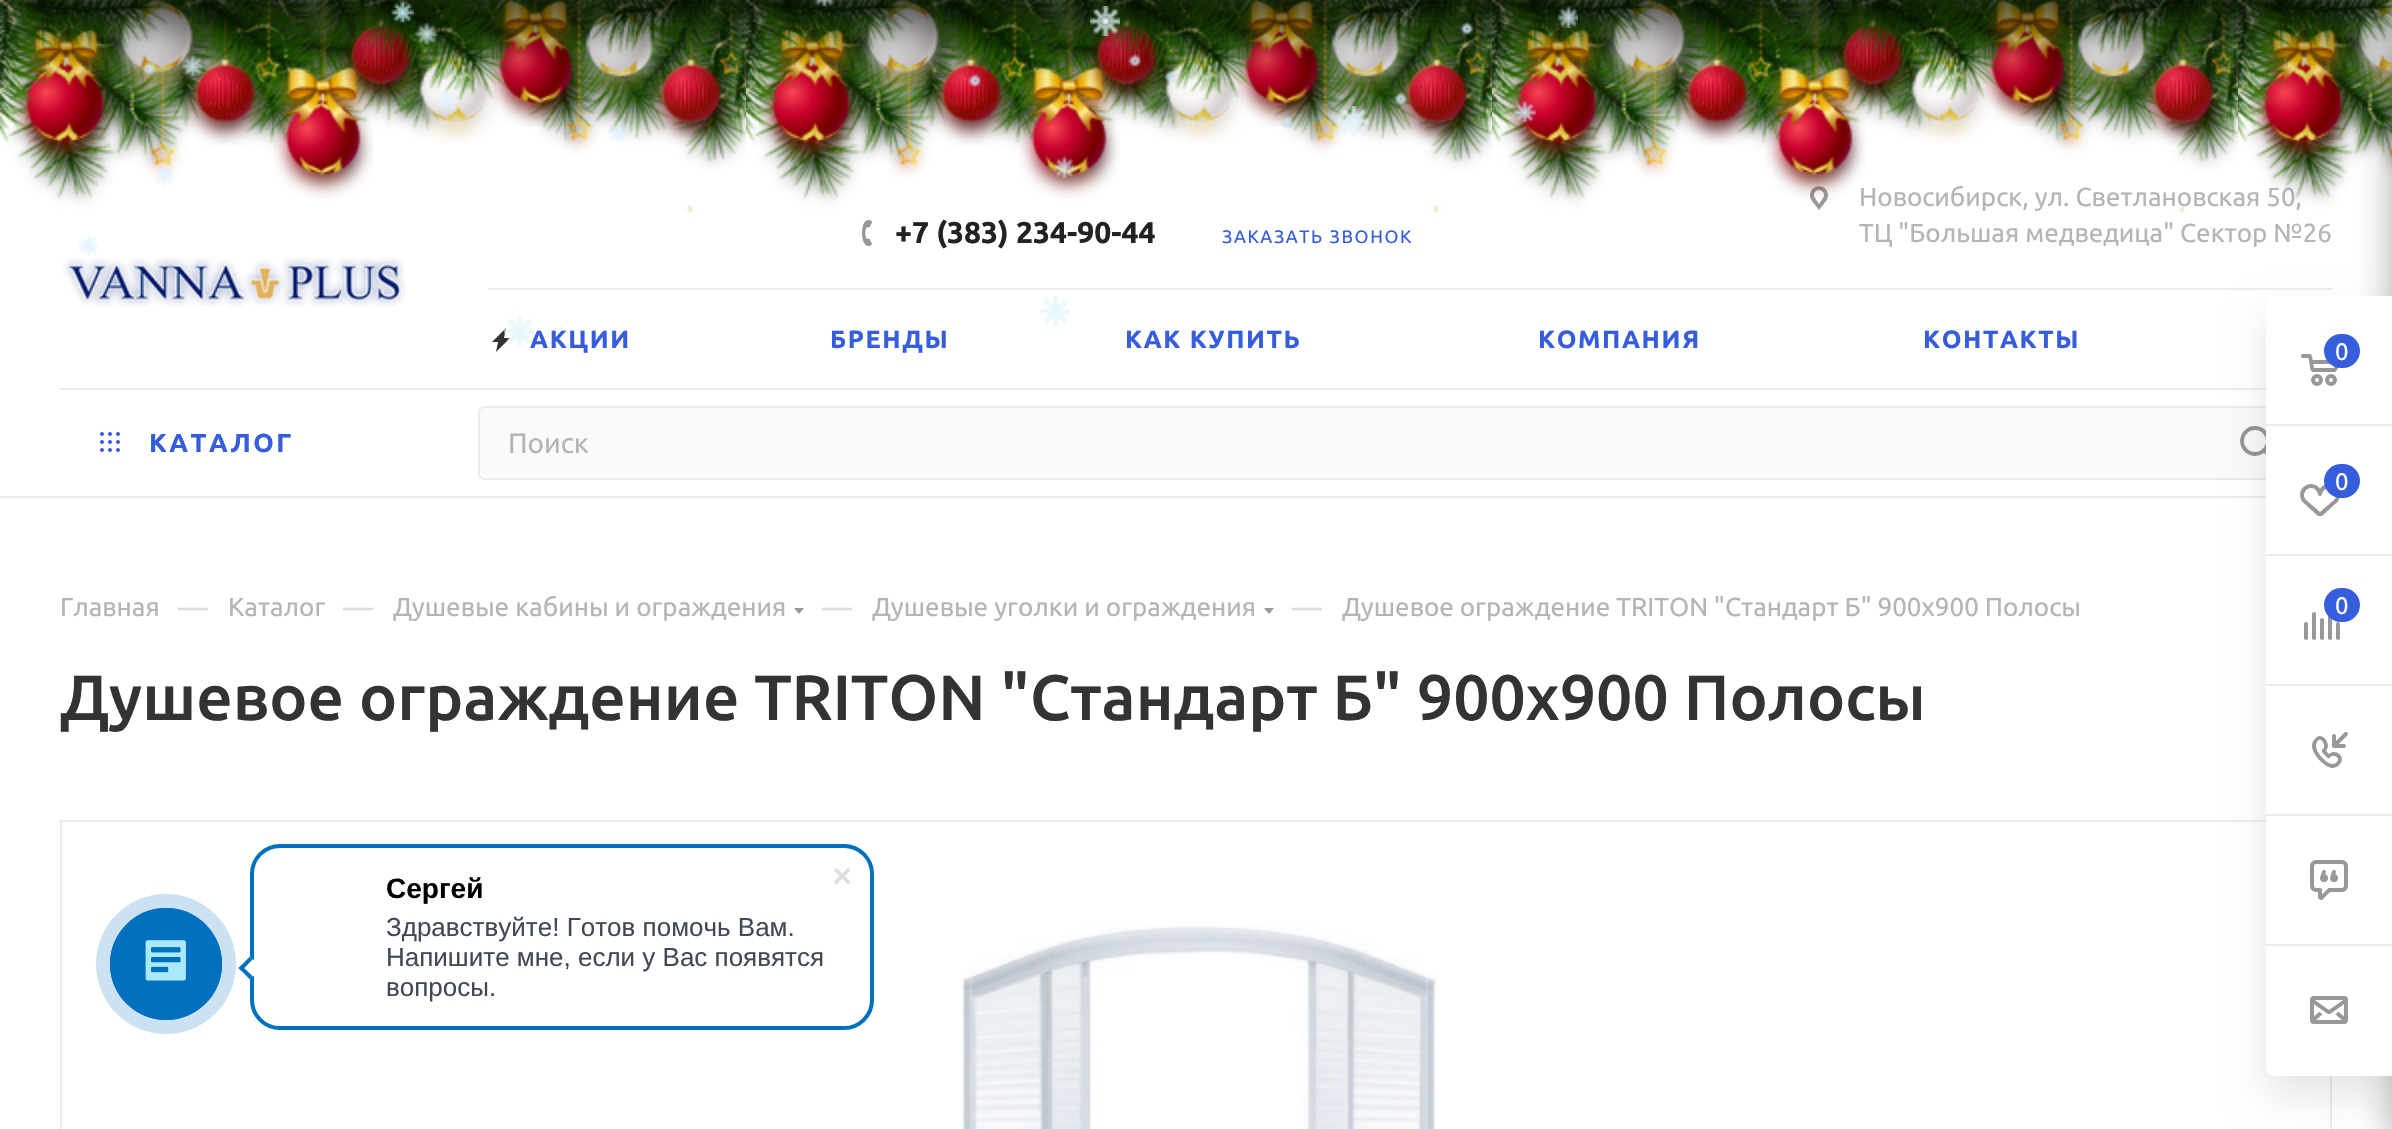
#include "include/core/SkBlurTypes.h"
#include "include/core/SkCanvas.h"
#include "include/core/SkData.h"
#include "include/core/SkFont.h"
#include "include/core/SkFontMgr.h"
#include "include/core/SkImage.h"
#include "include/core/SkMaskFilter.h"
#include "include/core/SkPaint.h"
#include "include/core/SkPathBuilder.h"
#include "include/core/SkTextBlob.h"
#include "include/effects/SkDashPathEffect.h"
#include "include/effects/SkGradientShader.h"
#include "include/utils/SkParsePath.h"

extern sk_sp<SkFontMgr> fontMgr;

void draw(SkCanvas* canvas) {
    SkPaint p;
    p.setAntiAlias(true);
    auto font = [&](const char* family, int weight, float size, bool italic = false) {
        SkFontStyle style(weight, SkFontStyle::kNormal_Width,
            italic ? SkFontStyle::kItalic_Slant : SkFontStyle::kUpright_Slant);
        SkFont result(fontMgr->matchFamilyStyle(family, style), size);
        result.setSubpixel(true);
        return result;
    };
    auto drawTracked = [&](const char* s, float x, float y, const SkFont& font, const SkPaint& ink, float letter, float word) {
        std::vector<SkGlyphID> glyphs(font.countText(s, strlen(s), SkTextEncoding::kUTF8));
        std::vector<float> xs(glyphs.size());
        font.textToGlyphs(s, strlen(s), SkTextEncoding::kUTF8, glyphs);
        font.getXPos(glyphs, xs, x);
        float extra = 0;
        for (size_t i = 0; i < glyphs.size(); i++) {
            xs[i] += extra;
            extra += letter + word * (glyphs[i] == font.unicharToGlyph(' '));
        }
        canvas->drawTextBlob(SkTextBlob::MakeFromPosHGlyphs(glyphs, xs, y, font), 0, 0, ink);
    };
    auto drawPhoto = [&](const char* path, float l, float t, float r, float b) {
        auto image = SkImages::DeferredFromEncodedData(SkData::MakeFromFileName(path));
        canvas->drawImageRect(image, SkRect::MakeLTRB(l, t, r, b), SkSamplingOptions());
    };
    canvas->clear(0xFFFFFFFF);
    drawPhoto("media/41.png", 1810, 186, 1828, 210);
    auto font1 = font("Ubuntu", 400, 26);
    p.setColor(0xFFB6B5B5);
    canvas->drawString("Новосибирск, ул. Светлановская 50,", 1859, 206, font1, p);
    drawPhoto("media/20.png", 0, 0, 2392, 213);
    drawPhoto("media/25.png", 273, 0, 374, 199);
    drawPhoto("media/26.png", 339, 0, 421, 107);
    drawPhoto("media/32.png", 408, 12, 498, 144);
    drawPhoto("media/27.png", 354, 0, 410, 62);
    drawPhoto("media/29.png", 487, 0, 584, 127);
    drawPhoto("media/28.png", 410, 0, 510, 100);
    drawPhoto("media/22.png", 13, 0, 117, 164);
    drawPhoto("media/21.png", 0, 0, 50, 142);
    drawPhoto("media/24.png", 108, 0, 206, 93);
    drawPhoto("media/23.png", 50, 0, 172, 54);
    drawPhoto("media/30.png", 574, 0, 666, 98);
    drawPhoto("media/31.png", 183, 18, 266, 146);
    drawPhoto("media/35.png", 650, 20, 733, 146);
    drawPhoto("media/33.png", 578, 0, 734, 56);
    drawPhoto("media/34.png", 734, 0, 746, 138);
    drawPhoto("media/22.png", 759, 0, 863, 164);
    drawPhoto("media/21.png", 746, 0, 796, 142);
    drawPhoto("media/24.png", 854, 0, 952, 93);
    drawPhoto("media/23.png", 796, 0, 918, 54);
    drawPhoto("media/25.png", 1019, 0, 1120, 199);
    drawPhoto("media/26.png", 1085, 0, 1167, 107);
    drawPhoto("media/32.png", 1154, 12, 1244, 144);
    drawPhoto("media/27.png", 1100, 0, 1156, 62);
    drawPhoto("media/29.png", 1233, 0, 1330, 127);
    drawPhoto("media/28.png", 1156, 0, 1256, 100);
    drawPhoto("media/30.png", 1320, 0, 1412, 98);
    drawPhoto("media/31.png", 929, 18, 1012, 146);
    drawPhoto("media/35.png", 1396, 20, 1479, 146);
    drawPhoto("media/33.png", 1324, 0, 1480, 56);
    drawPhoto("media/34.png", 1480, 0, 1492, 138);
    drawPhoto("media/22.png", 1505, 0, 1609, 164);
    drawPhoto("media/21.png", 1492, 0, 1542, 142);
    drawPhoto("media/24.png", 1600, 0, 1698, 93);
    drawPhoto("media/23.png", 1542, 0, 1664, 54);
    drawPhoto("media/36.png", 1765, 0, 1866, 199);
    drawPhoto("media/26.png", 1831, 0, 1913, 107);
    drawPhoto("media/32.png", 1900, 12, 1990, 144);
    drawPhoto("media/27.png", 1846, 0, 1902, 62);
    drawPhoto("media/29.png", 1979, 0, 2076, 127);
    drawPhoto("media/28.png", 1902, 0, 2002, 100);
    drawPhoto("media/30.png", 2066, 0, 2158, 98);
    drawPhoto("media/31.png", 1675, 18, 1758, 146);
    drawPhoto("media/35.png", 2142, 20, 2225, 146);
    drawPhoto("media/33.png", 2070, 0, 2226, 56);
    drawPhoto("media/34.png", 2226, 0, 2238, 138);
    drawPhoto("media/22.png", 2251, 0, 2355, 164);
    drawPhoto("media/21.png", 2238, 0, 2288, 142);
    drawPhoto("media/38.png", 2346, 0, 2392, 93);
    drawPhoto("media/37.png", 2288, 0, 2392, 54);
    p.setColor(0xBF000000);
    p.setMaskFilter(SkMaskFilter::MakeBlur(kNormal_SkBlurStyle, 30));
    canvas->drawRect(SkRect::MakeLTRB(0, -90, 2392, 30), p);
    p.setMaskFilter(nullptr);
    drawPhoto("media/1.png", 391, 1, 414, 23);
    drawPhoto("media/2.png", 415, 22, 439, 45);
    drawPhoto("media/3.png", 815, 0, 834, 6);
    drawPhoto("media/4.png", 1090, 6, 1120, 36);
    drawPhoto("media/5.png", 1459, 21, 1474, 35);
    drawPhoto("media/6.png", 1557, 5, 1578, 28);
    drawPhoto("media/7.png", 141, 61, 156, 75);
    drawPhoto("media/8.png", 181, 54, 205, 77);
    drawPhoto("media/9.png", 967, 73, 982, 87);
    drawPhoto("media/10.png", 1127, 53, 1142, 67);
    drawPhoto("media/11.png", 1163, 69, 1177, 83);
    drawPhoto("media/12.png", 436, 89, 457, 110);
    drawPhoto("media/13.png", 1393, 91, 1408, 105);
    drawPhoto("media/14.png", 608, 119, 628, 142);
    drawPhoto("media/15.png", 1280, 115, 1294, 129);
    drawPhoto("media/16.png", 1338, 106, 1368, 136);
    drawPhoto("media/17.png", 1513, 101, 1536, 123);
    drawPhoto("media/18.png", 154, 164, 174, 186);
    drawPhoto("media/19.png", 1053, 155, 1074, 178);
    drawPhoto("media/39.png", 62, 257, 407, 308);
    drawPhoto("media/40.png", 862, 220, 872, 246);
    auto font2 = font("Ubuntu", 700, 30);
    p.setColor(0xFF222222);
    canvas->drawString("+7 (383) 234-90-44", 895, 243, font2, p);
    auto font3 = font("Ubuntu", 400, 18);
    p.setColor(0xFF365EDC);
    drawTracked("ЗАКАЗАТЬ ЗВОНОК", 1222, 243, font3, p, 1.6f, 0);
    p.setColor(0xFFB6B5B5);
    canvas->drawString("ТЦ \"Большая медведица\"", 1859, 242, font1, p);
    canvas->drawString("Cектор №26", 2180, 242, font1, p);
    p.setColor(0xFFEDEDED);
    canvas->drawRect(SkRect::MakeLTRB(488, 288, 2332, 290), p);
    p.setColor(0xFF333333);
    canvas->drawPath(SkPathBuilder(SkPathFillType::kEvenOdd).moveTo(506, 328).lineTo(492, 342).lineTo(498, 342).lineTo(496, 352).lineTo(510, 338).lineTo(504, 338).close().detach(), p);
    auto font4 = font("Ubuntu", 700, 25);
    p.setColor(0xFF365EDC);
    {
        const struct { const char* s; float x, y; } items[] = {
            {"АКЦИИ", 530, 348},
            {"БРЕНДЫ", 830, 348},
            {"КАК КУПИТЬ", 1125, 348},
            {"КОМПАНИЯ", 1538, 348},
            {"КОНТАКТЫ", 1923, 348},
        };
        for (auto [s, x, y] : items) {
            drawTracked(s, x, y, font4, p, 1.6f, 0);
        }
    }
    p.setColor(0xFFECECEC);
    canvas->drawRect(SkRect::MakeLTRB(0, 496, 2266, 498), p);
    canvas->drawRect(SkRect::MakeLTRB(60, 388, 2266, 390), p);
    drawPhoto("media/42.png", 100, 432, 120, 452);
    auto font5 = font("Ubuntu", 700, 26);
    p.setColor(0xFF365EDC);
    drawTracked("КАТАЛОГ", 149, 452, font5, p, 2.5f, 0);
    p.setColor(0xFFFAFAFA);
    canvas->drawRoundRect(SkRect::MakeLTRB(479, 407, 2299, 479), 5, 5, p);
    p.setStyle(SkPaint::kStroke_Style);
    p.setStrokeWidth(2);
    p.setColor(0xFFECECEC);
    canvas->drawRoundRect(SkRect::MakeLTRB(479, 407, 2299, 479), 5, 5, p);
    auto font6 = font("Ubuntu", 400, 28);
    p.setStyle(SkPaint::kFill_Style);
    p.setColor(0xFFB6B5B5);
    canvas->drawString("Поиск", 508, 453, font6, p);
    drawPhoto("media/43.png", 2240, 426, 2266, 456);
    canvas->drawString("Главная", 60, 616, font1, p);
    auto font7 = font("Ubuntu", 400, 30);
    p.setColor(0xFFDDDDDD);
    canvas->drawString("—", 178, 618, font7, p);
    p.setColor(0xFFB6B5B5);
    canvas->drawString("Каталог", 228, 616, font1, p);
    p.setColor(0xFFDDDDDD);
    canvas->drawString("—", 343, 618, font7, p);
    p.setColor(0xFFB6B5B5);
    canvas->drawString("Душевые кабины и ограждения", 393, 616, font1, p);
    p.setColor(0xFF999999);
    canvas->drawPath(SkPathBuilder(SkPathFillType::kEvenOdd).moveTo(794, 608).lineTo(804, 608).lineTo(799, 614).close().detach(), p);
    p.setColor(0xFFDDDDDD);
    canvas->drawString("—", 822, 618, font7, p);
    p.setColor(0xFFB6B5B5);
    canvas->drawString("Душевые уголки и ограждения", 872, 616, font1, p);
    p.setColor(0xFF999999);
    canvas->drawPath(SkPathBuilder(SkPathFillType::kEvenOdd).moveTo(1264, 608).lineTo(1274, 608).lineTo(1269, 614).close().detach(), p);
    p.setColor(0xFFDDDDDD);
    canvas->drawString("—", 1292, 618, font7, p);
    p.setColor(0xFFB6B5B5);
    canvas->drawString("Душевое ограждение TRITON \"Стандарт Б\" 900х900 Полосы", 1342, 616, font1, p);
    auto font8 = font("Ubuntu", 500, 64);
    p.setColor(0xFF333333);
    canvas->drawString("Душевое ограждение TRITON \"Стандарт Б\" 900х900 Полосы", 60, 720, font8, p);
    p.setStyle(SkPaint::kStroke_Style);
    p.setColor(0xFFECECEC);
    canvas->drawRect(SkRect::MakeLTRB(61, 821, 2331, 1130), p);
    drawPhoto("media/44.png", 961, 925, 1438, 1129);
    p.setStyle(SkPaint::kFill_Style);
    p.setColor(0x662C2C2C);
    p.setMaskFilter(SkMaskFilter::MakeBlur(kNormal_SkBlurStyle, 18));
    canvas->drawRoundRect(SkRect::MakeLTRB(2392, 12, 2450, 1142), 4, 4, p);
    p.setMaskFilter(nullptr);
    p.setColor(0x1A000000);
    p.setMaskFilter(SkMaskFilter::MakeBlur(kNormal_SkBlurStyle, 20));
    canvas->drawRoundRect(SkRect::MakeLTRB(2266, 316, 2392, 1096), 8, 8, p);
    p.setMaskFilter(nullptr);
    p.setColor(0xFFFFFFFF);
    canvas->drawPath(SkPathBuilder().moveTo(2274, 296).lineTo(2392, 296).lineTo(2392, 1076).lineTo(2274, 1076).cubicTo(2269.5f, 1076, 2266, 1072.5f, 2266, 1068).lineTo(2266, 304).cubicTo(2266, 299.5f, 2269.5f, 296, 2274, 296).close().detach(), p);
    p.setColor(0xFFECECEC);
    canvas->drawRect(SkRect::MakeLTRB(2266, 424, 2392, 426), p);
    drawPhoto("media/45.png", 2301, 354, 2338, 386);
    p.setColor(0xFF365EDC);
    canvas->drawRoundRect(SkRect::MakeLTRB(2324, 334, 2360, 368), 17, 17, p);
    auto font9 = font("Ubuntu", 400, 24);
    p.setColor(0xFFFFFFFF);
    canvas->drawString("0", 2335, 360, font9, p);
    p.setColor(0xFFECECEC);
    canvas->drawRect(SkRect::MakeLTRB(2266, 554, 2392, 556), p);
    drawPhoto("media/46.png", 2300, 484, 2340, 516);
    p.setColor(0xFF365EDC);
    canvas->drawRoundRect(SkRect::MakeLTRB(2324, 464, 2360, 498), 17, 17, p);
    p.setColor(0xFFFFFFFF);
    canvas->drawString("0", 2335, 490, font9, p);
    p.setColor(0xFFECECEC);
    canvas->drawRect(SkRect::MakeLTRB(2266, 684, 2392, 686), p);
    drawPhoto("media/47.png", 2304, 612, 2340, 640);
    p.setColor(0xFF365EDC);
    canvas->drawRoundRect(SkRect::MakeLTRB(2324, 588, 2360, 622), 17, 17, p);
    p.setColor(0xFFFFFFFF);
    canvas->drawString("0", 2335, 614, font9, p);
    p.setColor(0xFFECECEC);
    canvas->drawRect(SkRect::MakeLTRB(2266, 814, 2392, 816), p);
    drawPhoto("media/48.png", 2312, 732, 2348, 768);
    canvas->drawRect(SkRect::MakeLTRB(2266, 944, 2392, 946), p);
    drawPhoto("media/49.png", 2310, 860, 2348, 900);
    drawPhoto("media/50.png", 2310, 996, 2348, 1024);
    p.setColor(0xFFCCE2F2);
    canvas->drawCircle(166, 964, 70, p);
    p.setStyle(SkPaint::kStroke_Style);
    p.setColor(0xFF0070BF);
    canvas->drawCircle(166, 964, 55, p);
    p.setStyle(SkPaint::kFill_Style);
    canvas->drawCircle(166, 964, 56, p);
    drawPhoto("media/51.png", 145, 940, 186, 981);
    p.setStyle(SkPaint::kStroke_Style);
    p.setStrokeWidth(4);
    canvas->drawRoundRect(SkRect::MakeLTRB(252, 846, 872, 1028), 28, 28, p);
    p.setStyle(SkPaint::kFill_Style);
    p.setColor(0xFFFFFFFF);
    canvas->drawPath(SkPathBuilder().moveTo(261.5f, 968).lineTo(250, 979.5f).lineTo(238.5f, 968).lineTo(250, 956.5f).close().detach(), p);
    p.setColor(0xFF0070BF);
    canvas->drawPath(SkPathBuilder().moveTo(253, 976.5f).lineTo(250, 979.5f).lineTo(238.5f, 968).lineTo(241.5f, 965.5f).close().detach(), p);
    canvas->drawPath(SkPathBuilder().moveTo(252.5f, 959.5f).lineTo(241.5f, 971).lineTo(238.5f, 968).lineTo(250, 956.5f).close().detach(), p);
    auto font10 = font("Liberation Sans", 700, 28);
    p.setColor(0xFF000000);
    canvas->drawString("Сергей", 386, 898, font10, p);
    auto font11 = font("Liberation Sans", 400, 26);
    p.setColor(0xFF424956);
    {
        const struct { const char* s; float x, y; } items[] = {
            {"Здравствуйте! Готов помочь Вам.", 386, 936},
            {"Напишите мне, если у Вас появятся", 386, 966},
            {"вопросы.", 386, 996},
        };
        for (auto [s, x, y] : items) {
            canvas->drawString(s, x, y, font11, p);
        }
    }
    drawPhoto("media/52.png", 834, 868, 851, 885);
    drawPhoto("media/53.png", 78, 235, 98, 256);
    drawPhoto("media/54.png", 1040, 296, 1070, 326);
    drawPhoto("media/55.png", 504, 316, 534, 346);
}
